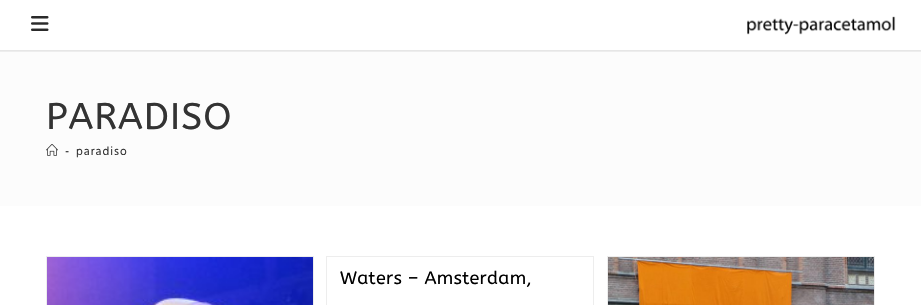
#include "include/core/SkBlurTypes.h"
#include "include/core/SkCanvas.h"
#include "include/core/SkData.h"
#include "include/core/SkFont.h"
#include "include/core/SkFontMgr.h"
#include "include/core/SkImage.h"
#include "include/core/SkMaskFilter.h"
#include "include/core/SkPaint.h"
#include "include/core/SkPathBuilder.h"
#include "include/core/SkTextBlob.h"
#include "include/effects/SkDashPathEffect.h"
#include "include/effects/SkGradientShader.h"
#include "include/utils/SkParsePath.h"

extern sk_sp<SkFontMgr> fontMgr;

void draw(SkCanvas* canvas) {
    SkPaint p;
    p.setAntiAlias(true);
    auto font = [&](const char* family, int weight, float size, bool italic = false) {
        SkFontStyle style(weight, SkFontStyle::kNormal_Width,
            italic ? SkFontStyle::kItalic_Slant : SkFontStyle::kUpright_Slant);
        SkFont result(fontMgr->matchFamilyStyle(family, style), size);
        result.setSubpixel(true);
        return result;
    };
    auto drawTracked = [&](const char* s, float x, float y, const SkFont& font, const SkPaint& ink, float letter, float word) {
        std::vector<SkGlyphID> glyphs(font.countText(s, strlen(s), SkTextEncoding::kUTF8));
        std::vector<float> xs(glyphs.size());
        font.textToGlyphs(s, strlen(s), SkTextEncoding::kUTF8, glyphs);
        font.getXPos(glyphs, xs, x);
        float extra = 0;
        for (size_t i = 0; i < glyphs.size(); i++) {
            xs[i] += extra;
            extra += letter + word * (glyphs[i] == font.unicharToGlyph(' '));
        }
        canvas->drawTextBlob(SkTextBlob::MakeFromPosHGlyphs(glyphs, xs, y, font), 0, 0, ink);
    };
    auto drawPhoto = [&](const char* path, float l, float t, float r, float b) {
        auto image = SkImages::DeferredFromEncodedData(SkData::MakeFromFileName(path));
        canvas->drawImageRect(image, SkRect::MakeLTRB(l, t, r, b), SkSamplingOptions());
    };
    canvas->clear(0xFFFFFFFF);
    p.setColor(0xFFEDEDED);
    canvas->drawRect(SkRect::MakeLTRB(0, 51, 921, 52), p);
    p.setColor(0xFFE6E6E6);
    canvas->drawRect(SkRect::MakeLTRB(0, 50, 921, 51), p);
    drawPhoto("media/1.png", 31, 16, 49, 31);
    drawPhoto("media/2.png", 747, 16, 896, 35);
    p.setColor(0xFFFCFCFC);
    canvas->drawRect(SkRect::MakeLTRB(0, 52, 921, 206), p);
    auto font1 = font("ABeeZee", 400, 37);
    p.setColor(0xFF333333);
    drawTracked("PARADISO", 46, 129, font1, p, 1, 0);
    drawPhoto("media/3.png", 46, 144, 58, 156);
    auto font2 = font("Hind", 400, 12);
    p.setColor(0xFF000000);
    drawTracked("-", 65, 155, font2, p, 1, 0);
    p.setColor(0xFF333333);
    drawTracked("paradiso", 76, 155, font2, p, 1, 0);
    p.setStyle(SkPaint::kStroke_Style);
    p.setStrokeWidth(1);
    p.setColor(0xFFEDEDED);
    canvas->drawRect(SkRect::MakeLTRB(46.5f, 256.5f, 313.5f, 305.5f), p);
    drawPhoto("media/4.png", 47, 257, 313, 305);
    canvas->drawRect(SkRect::MakeLTRB(326.5f, 256.5f, 593.5f, 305.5f), p);
    auto font3 = font("ABeeZee", 400, 18);
    p.setStyle(SkPaint::kFill_Style);
    p.setColor(0xFF000000);
    drawTracked("Waters – Amsterdam,", 340, 284, font3, p, 0.25f, 0);
    p.setStyle(SkPaint::kStroke_Style);
    p.setColor(0xFFEDEDED);
    canvas->drawRect(SkRect::MakeLTRB(607.5f, 256.5f, 874.5f, 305.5f), p);
    drawPhoto("media/5.png", 608, 257, 874, 305);
}
